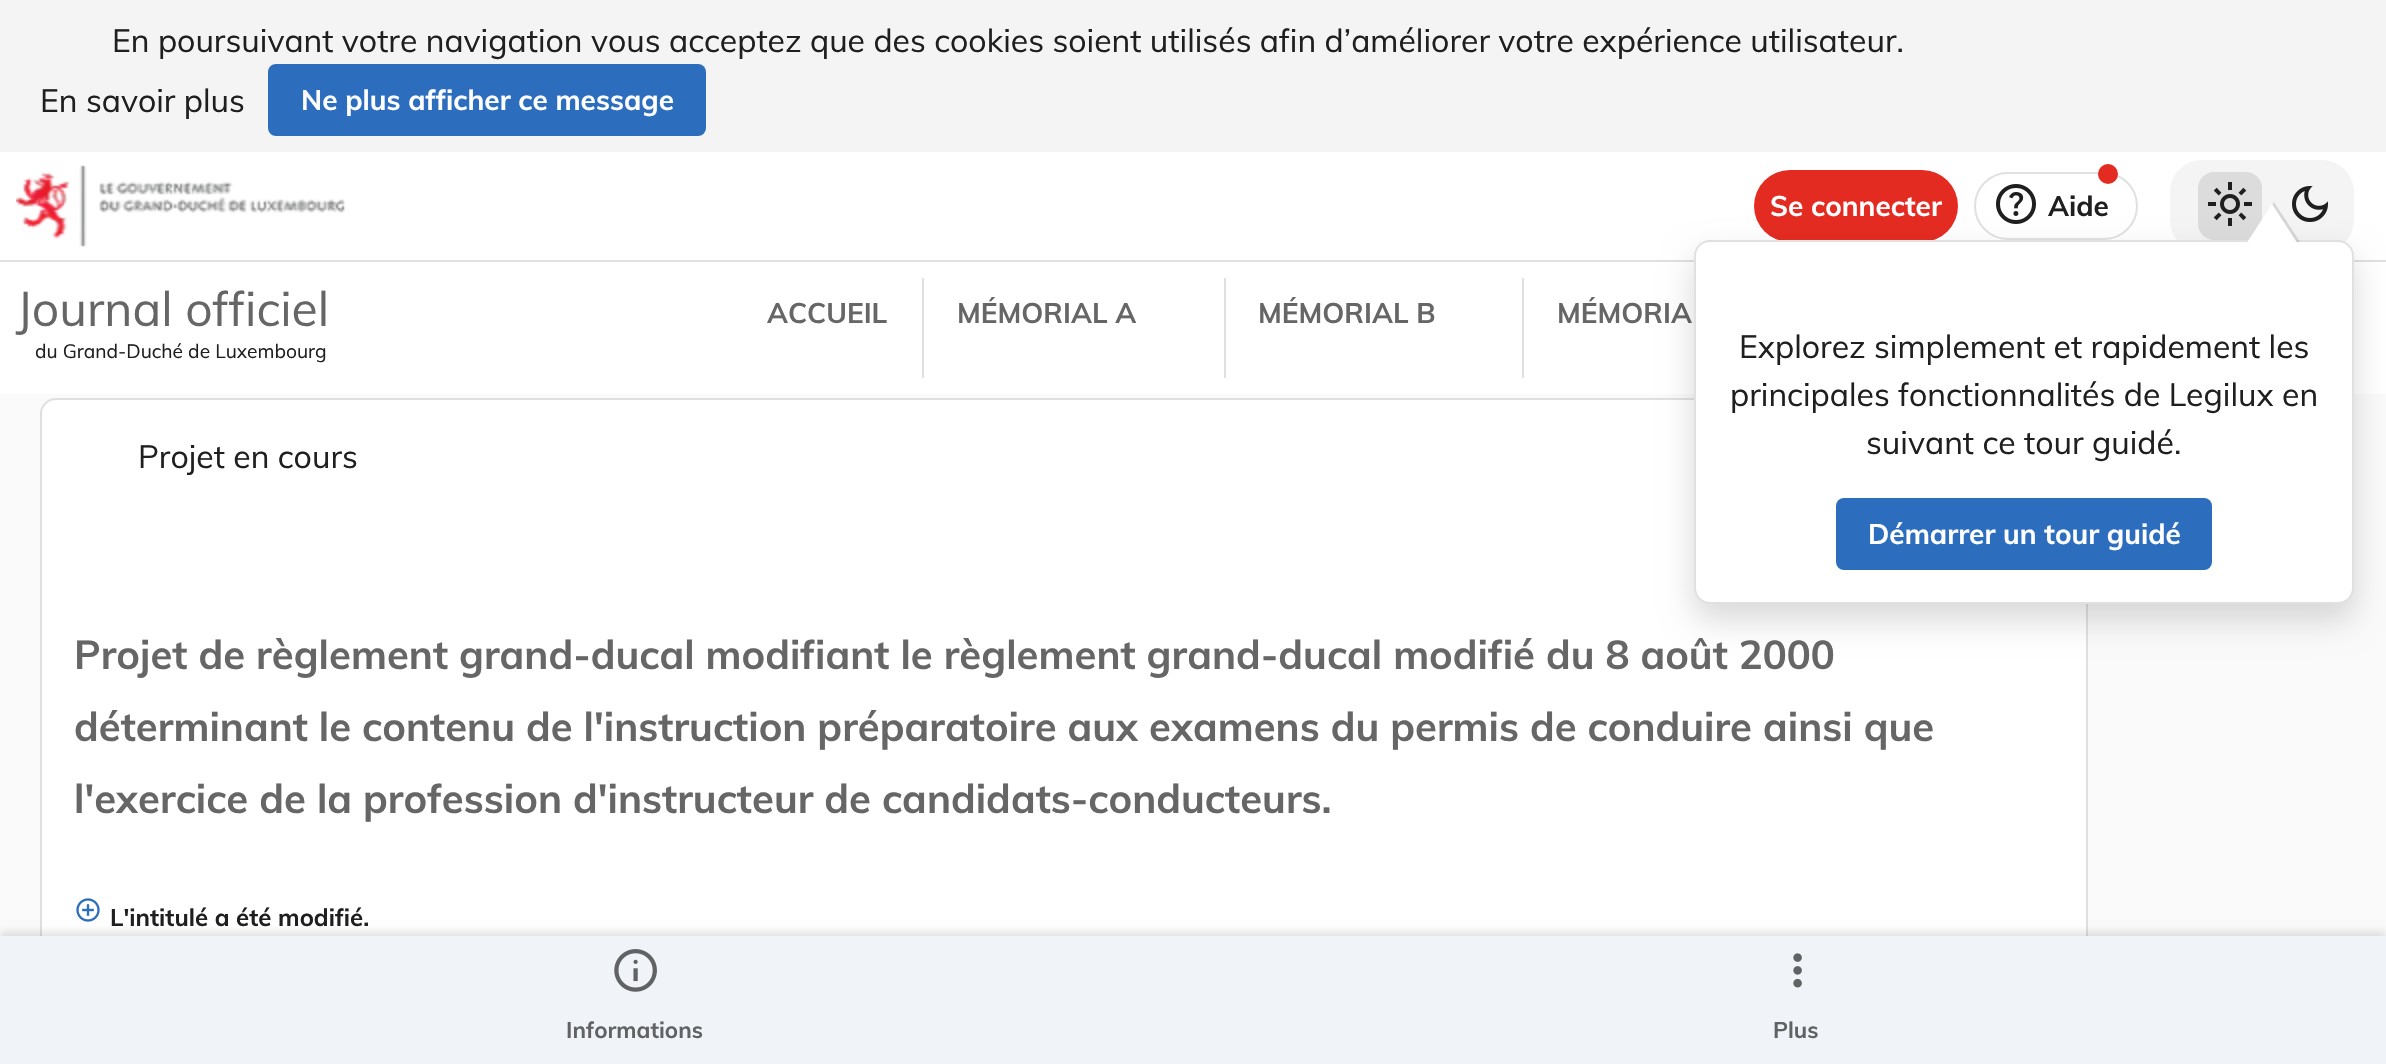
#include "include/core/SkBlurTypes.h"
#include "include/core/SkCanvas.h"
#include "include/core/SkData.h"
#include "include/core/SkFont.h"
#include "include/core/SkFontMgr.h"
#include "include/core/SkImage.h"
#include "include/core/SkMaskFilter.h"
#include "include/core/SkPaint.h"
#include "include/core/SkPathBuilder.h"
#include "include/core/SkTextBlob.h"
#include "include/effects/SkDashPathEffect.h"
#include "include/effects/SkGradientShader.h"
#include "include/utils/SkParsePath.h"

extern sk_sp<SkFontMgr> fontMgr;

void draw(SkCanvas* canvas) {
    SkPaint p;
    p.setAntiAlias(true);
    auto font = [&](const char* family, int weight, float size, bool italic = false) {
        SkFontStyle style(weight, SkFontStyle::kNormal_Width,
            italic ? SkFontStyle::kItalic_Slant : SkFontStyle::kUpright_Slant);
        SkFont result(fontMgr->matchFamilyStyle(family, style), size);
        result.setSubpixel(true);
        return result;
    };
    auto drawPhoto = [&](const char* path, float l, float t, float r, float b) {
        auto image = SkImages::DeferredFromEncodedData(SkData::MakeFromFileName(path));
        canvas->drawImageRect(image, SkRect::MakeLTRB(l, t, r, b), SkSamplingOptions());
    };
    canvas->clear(0xFFFAFAFA);
    p.setColor(0xFFFFFFFF);
    canvas->drawRect(SkRect::MakeLTRB(0, 152, 2386, 394), p);
    p.setColor(0xFFF4F4F4);
    canvas->drawRect(SkRect::MakeLTRB(0, 0, 2386, 152), p);
    auto font1 = font("Muli", 400, 32);
    p.setColor(0xFF1F1F1F);
    canvas->drawString("En poursuivant votre navigation vous acceptez que des cookies soient utilisés afin d’améliorer votre expérience utilisateur.", 112, 52, font1, p);
    canvas->drawString("En savoir plus", 40, 112, font1, p);
    p.setColor(0xFF2D6DBE);
    canvas->drawRoundRect(SkRect::MakeLTRB(268, 64, 706, 136), 8, 8, p);
    auto font2 = font("Muli", 700, 28);
    p.setColor(0xFFFFFFFF);
    canvas->drawString("Ne plus afficher ce message", 301, 110, font2, p);
    auto font3 = font("Muli", 400, 48);
    p.setColor(0xFF666666);
    canvas->drawString("Journal officiel", 16, 326, font3, p);
    auto font4 = font("Muli", 400, 19.25f);
    p.setColor(0xFF1F1F1F);
    canvas->drawString("du Grand-Duché de Luxembourg", 35, 358, font4, p);
    p.setColor(0xFFE0E0E0);
    canvas->drawRect(SkRect::MakeLTRB(922, 278, 924, 378), p);
    p.setColor(0xFF666666);
    canvas->drawString("ACCUEIL", 767, 323, font2, p);
    p.setColor(0xFFE0E0E0);
    canvas->drawRect(SkRect::MakeLTRB(1224, 278, 1226, 378), p);
    p.setColor(0xFF666666);
    canvas->drawString("MÉMORIAL A", 957, 323, font2, p);
    p.setColor(0xFFE0E0E0);
    canvas->drawRect(SkRect::MakeLTRB(1522, 278, 1524, 378), p);
    p.setColor(0xFF666666);
    canvas->drawString("MÉMORIAL B", 1258, 323, font2, p);
    canvas->drawString("MÉMORIA", 1557, 323, font2, p);
    p.setColor(0xFFE0E0E0);
    canvas->drawRect(SkRect::MakeLTRB(0, 260, 2386, 262), p);
    drawPhoto("media/1.png", 16, 165, 345, 247);
    p.setColor(0xFFF4F4F4);
    canvas->drawRoundRect(SkRect::MakeLTRB(2170, 160, 2354, 252), 32, 32, p);
    p.setColor(0xFFDCDCDC);
    canvas->drawRoundRect(SkRect::MakeLTRB(2198, 172, 2262, 240), 16, 16, p);
    drawPhoto("media/2.png", 2208, 182, 2252, 226);
    drawPhoto("media/3.png", 2292, 186, 2328, 222);
    p.setStyle(SkPaint::kStroke_Style);
    p.setStrokeWidth(2);
    p.setColor(0xFFE0E0E0);
    canvas->drawRoundRect(SkRect::MakeLTRB(1975, 173, 2137, 239), 33, 33, p);
    p.setStyle(SkPaint::kFill_Style);
    p.setColor(0xFFE42B21);
    canvas->drawCircle(2108, 174, 10, p);
    drawPhoto("media/4.png", 1996, 184, 2036, 224);
    p.setColor(0xFF1F1F1F);
    canvas->drawString("Aide", 2048, 216, font2, p);
    p.setColor(0xFFE42B21);
    canvas->drawRoundRect(SkRect::MakeLTRB(1754, 170, 1958, 242), 36, 36, p);
    p.setColor(0xFFFFFFFF);
    canvas->drawRoundRect(SkRect::MakeLTRB(40, 398, 2088, 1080), 16, 16, p);
    p.setStyle(SkPaint::kStroke_Style);
    p.setColor(0x1F000000);
    canvas->drawRoundRect(SkRect::MakeLTRB(41, 399, 2087, 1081), 15, 15, p);
    p.setStyle(SkPaint::kFill_Style);
    p.setColor(0x26000000);
    p.setMaskFilter(SkMaskFilter::MakeBlur(kNormal_SkBlurStyle, 16));
    canvas->drawRoundRect(SkRect::MakeLTRB(1694, 256, 2354, 620), 16, 16, p);
    p.setMaskFilter(nullptr);
    p.setColor(0xFFFFFFFF);
    canvas->drawRoundRect(SkRect::MakeLTRB(1694, 240, 2354, 604), 16, 16, p);
    p.setStyle(SkPaint::kStroke_Style);
    p.setColor(0x1F000000);
    canvas->drawRoundRect(SkRect::MakeLTRB(1695, 241, 2353, 603), 15, 15, p);
    p.setStyle(SkPaint::kFill_Style);
    canvas->drawPath(SkPathBuilder().moveTo(2300, 242).lineTo(2248, 242).lineTo(2274, 202).close().detach(), p);
    p.setColor(0xFFFFFFFF);
    canvas->drawPath(SkPathBuilder().moveTo(2298, 244).lineTo(2246, 244).lineTo(2272, 204).close().detach(), p);
    p.setColor(0xFF1F1F1F);
    {
        const struct { const char* s; float x, y; } items[] = {
            {"Explorez simplement et rapidement les", 1739, 358},
            {"principales fonctionnalités de Legilux en", 1730, 406},
            {"suivant ce tour guidé.", 1866, 454},
        };
        for (auto [s, x, y] : items) {
            canvas->drawString(s, x, y, font1, p);
        }
    }
    p.setColor(0xFF2D6DBE);
    canvas->drawRoundRect(SkRect::MakeLTRB(1836, 498, 2212, 570), 8, 8, p);
    p.setColor(0xFFFFFFFF);
    canvas->drawString("Démarrer un tour guidé", 1868, 544, font2, p);
    canvas->drawString("Se connecter", 1770, 216, font2, p);
    p.setColor(0xFF1F1F1F);
    canvas->drawString("Projet en cours", 138, 468, font1, p);
    auto font5 = font("Muli", 700, 40);
    p.setColor(0xFF666666);
    {
        const struct { const char* s; float x, y; } items[] = {
            {"Projet de règlement grand-ducal modifiant le règlement grand-ducal modifié du 8 août 2000", 74, 669},
            {"déterminant le contenu de l'instruction préparatoire aux examens du permis de conduire ainsi que", 74, 741},
            {"l'exercice de la profession d'instructeur de candidats-conducteurs.", 74, 813},
        };
        for (auto [s, x, y] : items) {
            canvas->drawString(s, x, y, font5, p);
        }
    }
    drawPhoto("media/5.png", 76, 898, 100, 922);
    auto font6 = font("Muli", 700, 24);
    p.setColor(0xFF1F1F1F);
    canvas->drawString("L'intitulé a été modifié.", 110, 926, font6, p);
    p.setColor(0x1F000000);
    p.setMaskFilter(SkMaskFilter::MakeBlur(kNormal_SkBlurStyle, 4));
    canvas->drawRect(SkRect::MakeLTRB(0, 932, 2386, 1060), p);
    p.setMaskFilter(nullptr);
    p.setColor(0xFFF0F4F9);
    canvas->drawRect(SkRect::MakeLTRB(0, 936, 2386, 1064), p);
    drawPhoto("media/6.png", 614, 949, 657, 992);
    auto font7 = font("Muli", 700, 22.5f);
    p.setColor(0xFF606264);
    canvas->drawString("Informations", 566, 1038, font7, p);
    drawPhoto("media/7.png", 1793, 953, 1802, 988);
    canvas->drawString("Plus", 1773, 1038, font7, p);
}
